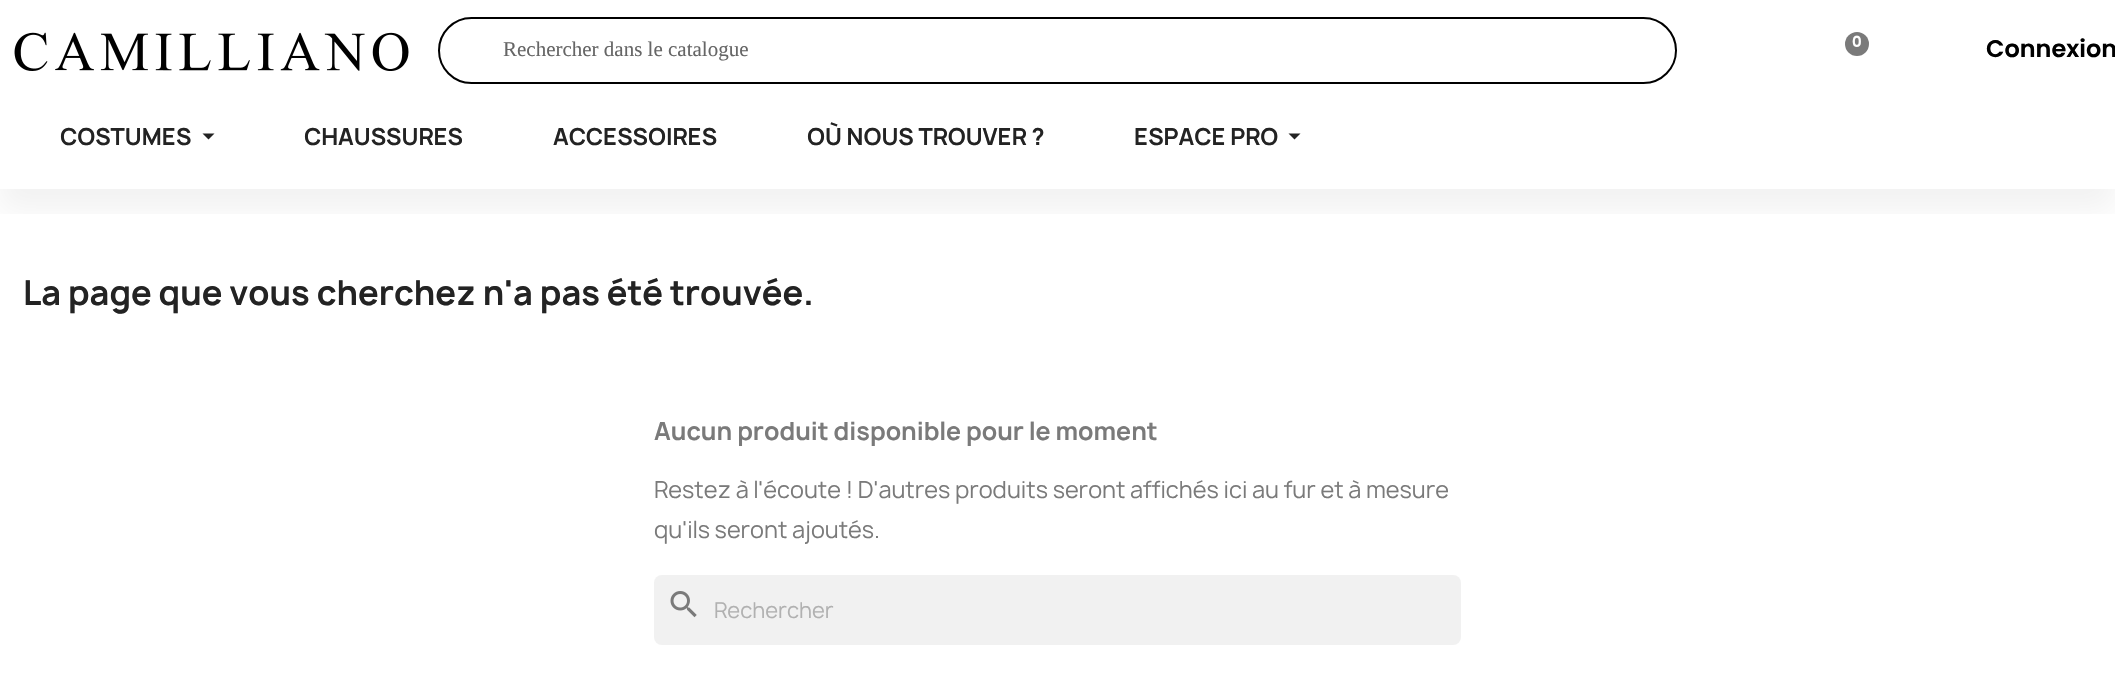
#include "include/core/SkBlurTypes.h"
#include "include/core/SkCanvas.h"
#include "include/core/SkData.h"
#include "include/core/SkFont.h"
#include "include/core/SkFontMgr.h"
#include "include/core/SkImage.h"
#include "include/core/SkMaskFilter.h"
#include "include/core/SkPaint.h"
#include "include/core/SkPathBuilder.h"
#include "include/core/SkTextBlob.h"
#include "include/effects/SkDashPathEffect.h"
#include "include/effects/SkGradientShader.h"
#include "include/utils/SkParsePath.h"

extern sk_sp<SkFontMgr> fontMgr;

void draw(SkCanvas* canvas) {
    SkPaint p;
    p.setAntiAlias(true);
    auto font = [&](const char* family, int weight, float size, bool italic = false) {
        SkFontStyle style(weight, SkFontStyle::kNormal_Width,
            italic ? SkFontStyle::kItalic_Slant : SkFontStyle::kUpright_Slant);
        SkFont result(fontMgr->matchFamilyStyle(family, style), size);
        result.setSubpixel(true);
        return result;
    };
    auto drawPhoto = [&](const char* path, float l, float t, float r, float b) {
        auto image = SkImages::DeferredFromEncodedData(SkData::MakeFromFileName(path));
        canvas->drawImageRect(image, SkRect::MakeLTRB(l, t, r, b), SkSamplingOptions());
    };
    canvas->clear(0xFFFFFFFF);
    drawPhoto("media/1.png", 14, 32, 409, 71);
    canvas->save();
    canvas->clipRect(SkRect::MakeLTRB(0, 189, 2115, 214));
    p.setColor(0x0D000000);
    p.setMaskFilter(SkMaskFilter::MakeBlur(kNormal_SkBlurStyle, 15));
    canvas->drawRect(SkRect::MakeLTRB(0, 120, 2115, 210), p);
    p.setMaskFilter(nullptr);
    canvas->restore();
    p.setStyle(SkPaint::kStroke_Style);
    p.setStrokeWidth(2);
    p.setColor(0xFF000000);
    canvas->drawRoundRect(SkRect::MakeLTRB(439, 18, 1676, 83), 32.5f, 32.5f, p);
    auto font1 = font("Liberation Serif", 400, 21);
    p.setStyle(SkPaint::kFill_Style);
    p.setColor(0xFF666666);
    canvas->drawString("Rechercher dans le catalogue", 503, 56, font1, p);
    p.setColor(0xFF7A7A7A);
    canvas->drawCircle(1857, 44, 12, p);
    auto font2 = font("Poppins", 600, 15);
    p.setColor(0xFFFFFFFF);
    canvas->drawString("0", 1852, 47, font2, p);
    auto font3 = font("Poppins", 600, 24);
    p.setColor(0xFF000000);
    canvas->drawString("Connexion", 1986, 57, font3, p);
    auto font4 = font("Manrope", 700, 22.5f);
    p.setColor(0xFF232323);
    canvas->drawString("COSTUMES", 60, 145, font4, p);
    canvas->drawPath(SkPathBuilder().moveTo(202.5f, 133.5f).lineTo(214.5f, 133.5f).lineTo(208.5f, 139.5f).close().detach(), p);
    {
        const struct { const char* s; float x, y; } items[] = {
            {"CHAUSSURES", 304, 145},
            {"ACCESSOIRES", 553, 145},
            {"OÙ NOUS TROUVER ?", 807, 145},
            {"ESPACE PRO", 1134, 145},
        };
        for (auto [s, x, y] : items) {
            canvas->drawString(s, x, y, font4, p);
        }
    }
    canvas->drawPath(SkPathBuilder().moveTo(1288.5f, 133.5f).lineTo(1300.5f, 133.5f).lineTo(1294.5f, 139.5f).close().detach(), p);
    auto font5 = font("Manrope", 700, 33);
    canvas->drawString("La page que vous cherchez n'a pas été trouvée.", 23, 305, font5, p);
    auto font6 = font("Manrope", 700, 24);
    p.setColor(0xFF7A7A7A);
    canvas->drawString("Aucun produit disponible pour le moment", 654, 440, font6, p);
    auto font7 = font("Manrope", 400, 22.5f);
    canvas->drawString("Restez à l'écoute ! D'autres produits seront affichés ici au fur et à mesure", 654, 498, font7, p);
    canvas->drawString("qu'ils seront ajoutés.", 654, 538, font7, p);
    p.setColor(0xFFF1F1F1);
    canvas->drawRoundRect(SkRect::MakeLTRB(654, 575, 1461, 645), 8, 8, p);
    drawPhoto("media/2.png", 670, 591, 697, 618);
    auto font8 = font("Manrope", 400, 21);
    p.setColor(0xFFB1B1B1);
    canvas->drawString("Rechercher", 714, 618, font8, p);
}
